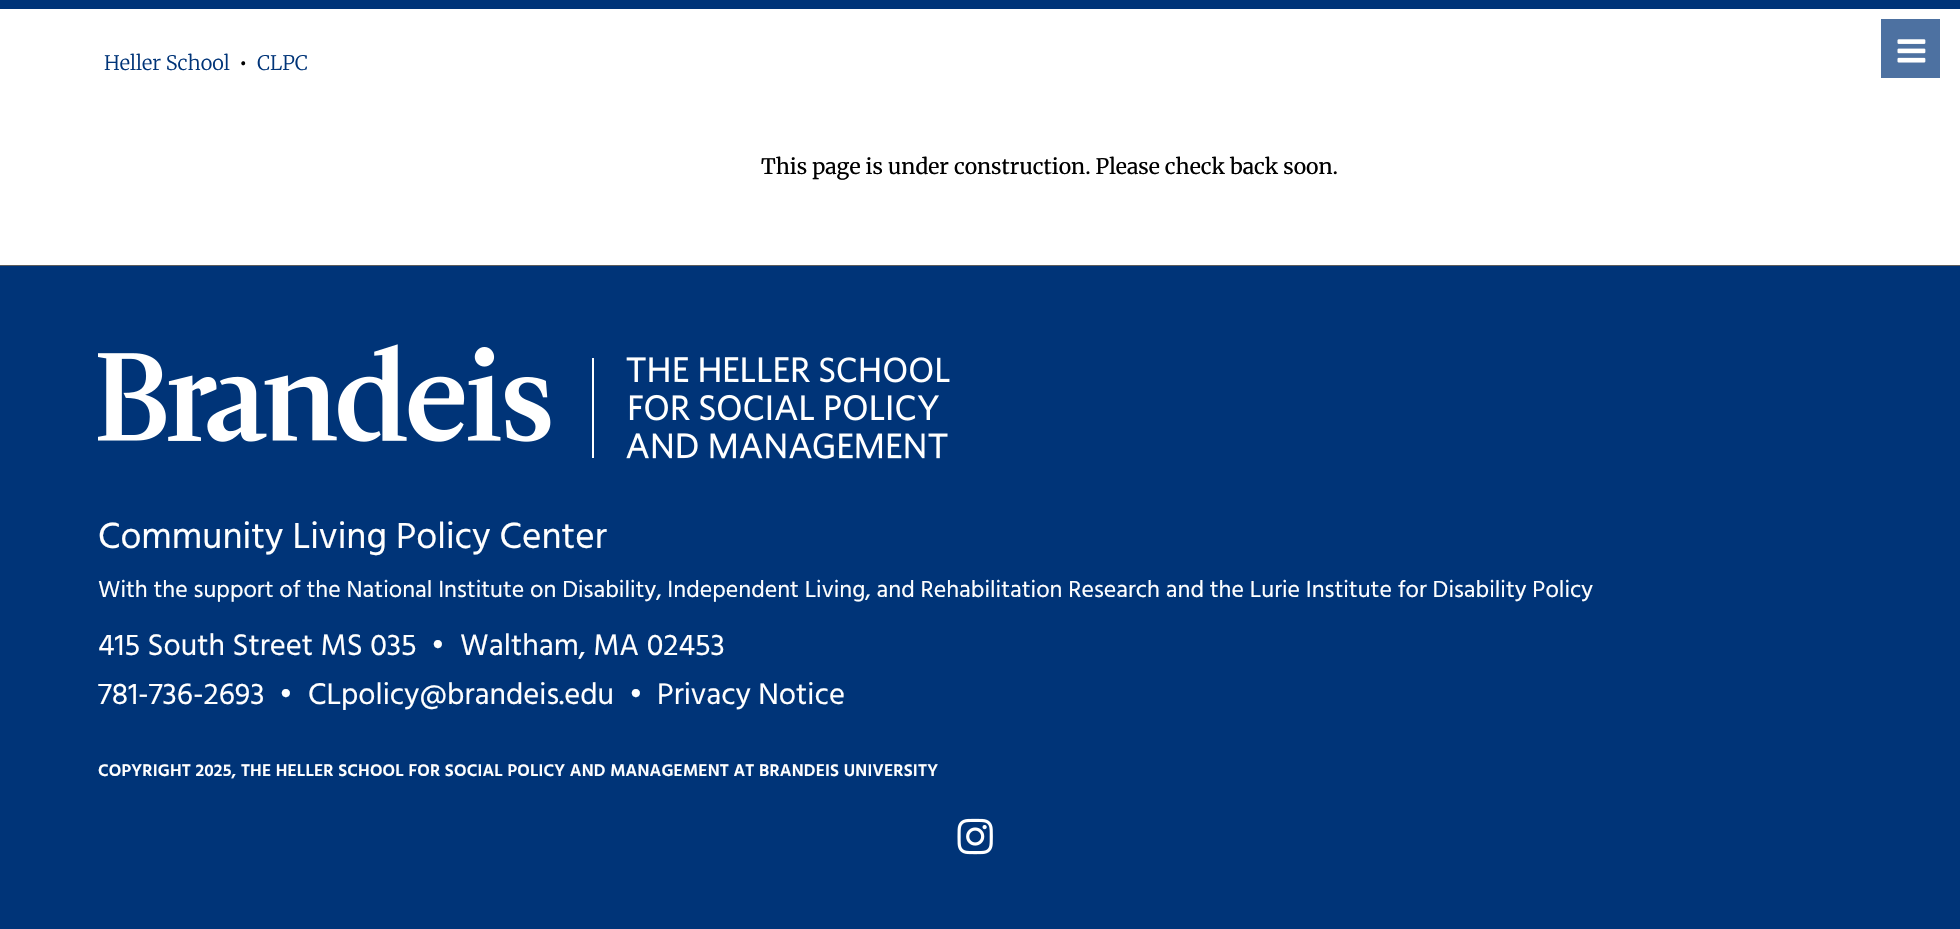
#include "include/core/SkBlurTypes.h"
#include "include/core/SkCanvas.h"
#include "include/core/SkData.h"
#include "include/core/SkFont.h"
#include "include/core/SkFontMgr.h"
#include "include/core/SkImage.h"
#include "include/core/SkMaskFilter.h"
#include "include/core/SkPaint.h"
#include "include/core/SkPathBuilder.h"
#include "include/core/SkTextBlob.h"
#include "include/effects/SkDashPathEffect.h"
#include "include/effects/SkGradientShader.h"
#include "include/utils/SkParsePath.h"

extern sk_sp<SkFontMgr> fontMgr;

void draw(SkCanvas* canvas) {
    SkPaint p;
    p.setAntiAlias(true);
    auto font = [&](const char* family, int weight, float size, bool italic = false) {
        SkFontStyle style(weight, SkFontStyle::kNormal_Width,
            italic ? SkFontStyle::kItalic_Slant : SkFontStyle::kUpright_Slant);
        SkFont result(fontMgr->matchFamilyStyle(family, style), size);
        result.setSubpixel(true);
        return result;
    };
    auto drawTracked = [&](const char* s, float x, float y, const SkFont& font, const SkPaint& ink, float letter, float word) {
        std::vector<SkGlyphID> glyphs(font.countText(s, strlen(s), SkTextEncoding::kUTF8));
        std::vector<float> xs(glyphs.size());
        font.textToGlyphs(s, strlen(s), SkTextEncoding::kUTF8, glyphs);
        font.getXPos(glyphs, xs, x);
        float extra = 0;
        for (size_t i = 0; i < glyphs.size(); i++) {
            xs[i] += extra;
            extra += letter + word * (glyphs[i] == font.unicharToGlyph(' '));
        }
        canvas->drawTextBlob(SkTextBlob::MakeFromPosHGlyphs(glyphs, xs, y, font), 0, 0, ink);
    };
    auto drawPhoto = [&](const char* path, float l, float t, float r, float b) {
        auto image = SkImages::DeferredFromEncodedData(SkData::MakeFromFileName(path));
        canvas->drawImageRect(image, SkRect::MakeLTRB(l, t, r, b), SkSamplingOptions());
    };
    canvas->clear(0xFFFFFFFF);
    p.setColor(0xFF003478);
    canvas->drawRect(SkRect::MakeLTRB(0, 0, 1960, 9), p);
    p.setColor(0xFF4D71A1);
    canvas->drawRect(SkRect::MakeLTRB(1881, 19, 1940, 78), p);
    drawPhoto("media/1.png", 1897, 39, 1926, 63);
    auto font1 = font("Merriweather", 300, 20);
    p.setColor(0xFF003478);
    canvas->drawString("Heller School", 104, 70, font1, p);
    auto font2 = font("Merriweather", 400, 20);
    p.setColor(0xFF000000);
    canvas->drawString("•", 239, 70, font2, p);
    p.setColor(0xFF003478);
    canvas->drawString("CLPC", 257, 70, font1, p);
    auto font3 = font("Merriweather", 400, 21.25f);
    p.setColor(0xFF000000);
    canvas->drawString("This page is under construction. Please check back soon.", 761, 174, font3, p);
    p.setColor(0xFF003478);
    canvas->drawRect(SkRect::MakeLTRB(0, 266, 1960, 929), p);
    p.setColor(0xFF5C5C5C);
    canvas->drawRect(SkRect::MakeLTRB(0, 265, 1960, 266), p);
    drawPhoto("media/2.png", 98, 344, 950, 459);
    auto font4 = font("Hind", 400, 37.25f);
    p.setColor(0xFFFFFFFF);
    canvas->drawString("Community Living Policy Center", 98, 548, font4, p);
    auto font5 = font("Hind", 400, 23.9f);
    canvas->drawString("With the support of the National Institute on Disability, Independent Living, and Rehabilitation Research and the Lurie Institute for Disability Policy", 98, 597, font5, p);
    auto font6 = font("Hind", 400, 30.6f);
    {
        const struct { const char* s; float x, y; } items[] = {
            {"415 South Street MS 035", 98, 655},
            {"•", 431, 655},
            {"Waltham, MA 02453", 460, 655},
            {"781-736-2693", 98, 704},
            {"•", 279, 704},
            {"CLpolicy@brandeis.edu", 308, 704},
            {"•", 629, 704},
            {"Privacy Notice", 657, 704},
        };
        for (auto [s, x, y] : items) {
            canvas->drawString(s, x, y, font6, p);
        }
    }
    auto font7 = font("Hind", 600, 17.3f);
    drawTracked("COPYRIGHT 2025, THE HELLER SCHOOL FOR SOCIAL POLICY AND MANAGEMENT AT BRANDEIS UNIVERSITY", 98, 776, font7, p, 0.2f, 0);
    drawPhoto("media/3.png", 957, 818, 993, 855);
}
